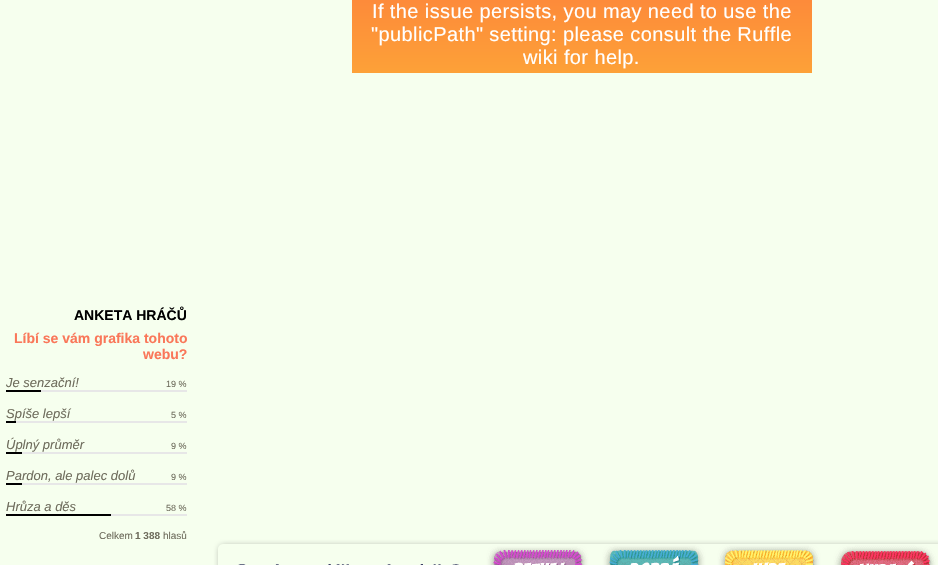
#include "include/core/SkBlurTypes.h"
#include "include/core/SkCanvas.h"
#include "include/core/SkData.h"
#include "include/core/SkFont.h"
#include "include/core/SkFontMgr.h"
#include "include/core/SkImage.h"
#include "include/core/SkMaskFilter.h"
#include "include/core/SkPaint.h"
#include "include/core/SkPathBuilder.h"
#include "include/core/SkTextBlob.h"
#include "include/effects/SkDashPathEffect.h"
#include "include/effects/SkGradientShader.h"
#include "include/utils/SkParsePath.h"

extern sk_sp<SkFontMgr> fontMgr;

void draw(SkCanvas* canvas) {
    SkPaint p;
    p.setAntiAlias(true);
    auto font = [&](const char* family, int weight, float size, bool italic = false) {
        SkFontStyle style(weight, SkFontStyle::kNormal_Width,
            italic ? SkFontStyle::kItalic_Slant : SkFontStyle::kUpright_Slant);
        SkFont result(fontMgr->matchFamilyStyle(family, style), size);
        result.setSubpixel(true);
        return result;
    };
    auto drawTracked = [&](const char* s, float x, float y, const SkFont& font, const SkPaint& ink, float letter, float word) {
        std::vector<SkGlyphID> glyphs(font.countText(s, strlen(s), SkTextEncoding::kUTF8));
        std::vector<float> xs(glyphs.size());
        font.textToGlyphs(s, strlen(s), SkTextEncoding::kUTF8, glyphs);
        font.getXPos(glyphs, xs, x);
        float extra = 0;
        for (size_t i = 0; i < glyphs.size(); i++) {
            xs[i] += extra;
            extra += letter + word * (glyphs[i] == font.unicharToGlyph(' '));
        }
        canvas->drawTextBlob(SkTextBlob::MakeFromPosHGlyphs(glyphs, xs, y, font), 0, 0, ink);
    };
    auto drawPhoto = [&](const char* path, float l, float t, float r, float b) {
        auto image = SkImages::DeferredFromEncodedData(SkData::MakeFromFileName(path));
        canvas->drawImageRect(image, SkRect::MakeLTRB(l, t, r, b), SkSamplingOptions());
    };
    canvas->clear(0xFFF6FFEE);
    {
        const SkColor colors[] = {0xFFFD3A40, 0xFFFDA138};
        const float stops[] = {0, 1};
        const SkPoint ends[] = {{582, -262}, {582, 73}};
        p.setShader(SkGradientShader::MakeLinear(ends, colors, stops, 2, SkTileMode::kClamp));
        p.setAlpha(255);
    }
    canvas->drawRect(SkRect::MakeLTRB(352, 0, 812, 73), p);
    auto font1 = font("Liberation Sans", 400, 20);
    p.setShader(nullptr);
    p.setColor(0xFFFFFFFF);
    {
        const struct { const char* s; float x, y; } items[] = {
            {"If the issue persists, you may need to use the", 372, 18},
            {"\"publicPath\" setting: please consult the Ruffle", 371, 41},
            {"wiki for help.", 523, 64},
        };
        for (auto [s, x, y] : items) {
            drawTracked(s, x, y, font1, p, 0.4f, 0);
        }
    }
    drawPhoto("media/1.png", 213, 539, 938, 565);
    drawPhoto("media/2.png", 480, 544, 596, 565);
    drawPhoto("media/3.png", 596, 544, 712, 565);
    drawPhoto("media/4.png", 712, 544, 828, 565);
    drawPhoto("media/5.png", 828, 544, 938, 565);
    auto font2 = font("Liberation Sans", 700, 14);
    p.setColor(0xFF000000);
    canvas->drawString("ANKETA HRÁČŮ", 74, 320, font2, p);
    p.setColor(0xFFFA7759);
    canvas->drawString("Líbí se vám grafika tohoto", 14, 343, font2, p);
    canvas->drawString("webu?", 143, 359, font2, p);
    auto font3 = font("Liberation Sans", 400, 13, true);
    p.setColor(0xFF6E6C5C);
    canvas->drawString("Je senzační!", 6, 387, font3, p);
    auto font4 = font("Liberation Sans", 400, 9);
    canvas->drawString("19 %", 166, 387, font4, p);
    p.setColor(0xFFE7E7E7);
    canvas->drawRect(SkRect::MakeLTRB(41, 390, 187, 392), p);
    p.setColor(0xFF000000);
    canvas->drawRect(SkRect::MakeLTRB(6, 390, 41, 392), p);
    p.setColor(0xFF6E6C5C);
    canvas->drawString("Spíše lepší", 6, 418, font3, p);
    canvas->drawString("5 %", 171, 418, font4, p);
    p.setColor(0xFFE7E7E7);
    canvas->drawRect(SkRect::MakeLTRB(16, 421, 187, 423), p);
    p.setColor(0xFF000000);
    canvas->drawRect(SkRect::MakeLTRB(6, 421, 16, 423), p);
    p.setColor(0xFF6E6C5C);
    canvas->drawString("Úplný průměr", 6, 449, font3, p);
    canvas->drawString("9 %", 171, 449, font4, p);
    p.setColor(0xFFE7E7E7);
    canvas->drawRect(SkRect::MakeLTRB(22, 452, 187, 454), p);
    p.setColor(0xFF000000);
    canvas->drawRect(SkRect::MakeLTRB(6, 452, 22, 454), p);
    p.setColor(0xFF6E6C5C);
    canvas->drawString("Pardon, ale palec dolů", 6, 480, font3, p);
    canvas->drawString("9 %", 171, 480, font4, p);
    p.setColor(0xFFE7E7E7);
    canvas->drawRect(SkRect::MakeLTRB(22, 483, 187, 485), p);
    p.setColor(0xFF000000);
    canvas->drawRect(SkRect::MakeLTRB(6, 483, 22, 485), p);
    p.setColor(0xFF6E6C5C);
    canvas->drawString("Hrůza a děs", 6, 511, font3, p);
    canvas->drawString("58 %", 166, 511, font4, p);
    p.setColor(0xFFE7E7E7);
    canvas->drawRect(SkRect::MakeLTRB(111, 514, 187, 516), p);
    p.setColor(0xFF000000);
    canvas->drawRect(SkRect::MakeLTRB(6, 514, 111, 516), p);
    auto font5 = font("Liberation Sans", 400, 10);
    p.setColor(0xFF6E6C5C);
    canvas->drawString("Celkem", 99, 539, font5, p);
    auto font6 = font("Liberation Sans", 700, 10);
    canvas->drawString("1 388", 135, 539, font6, p);
    canvas->drawString("hlasů", 163, 539, font5, p);
}
